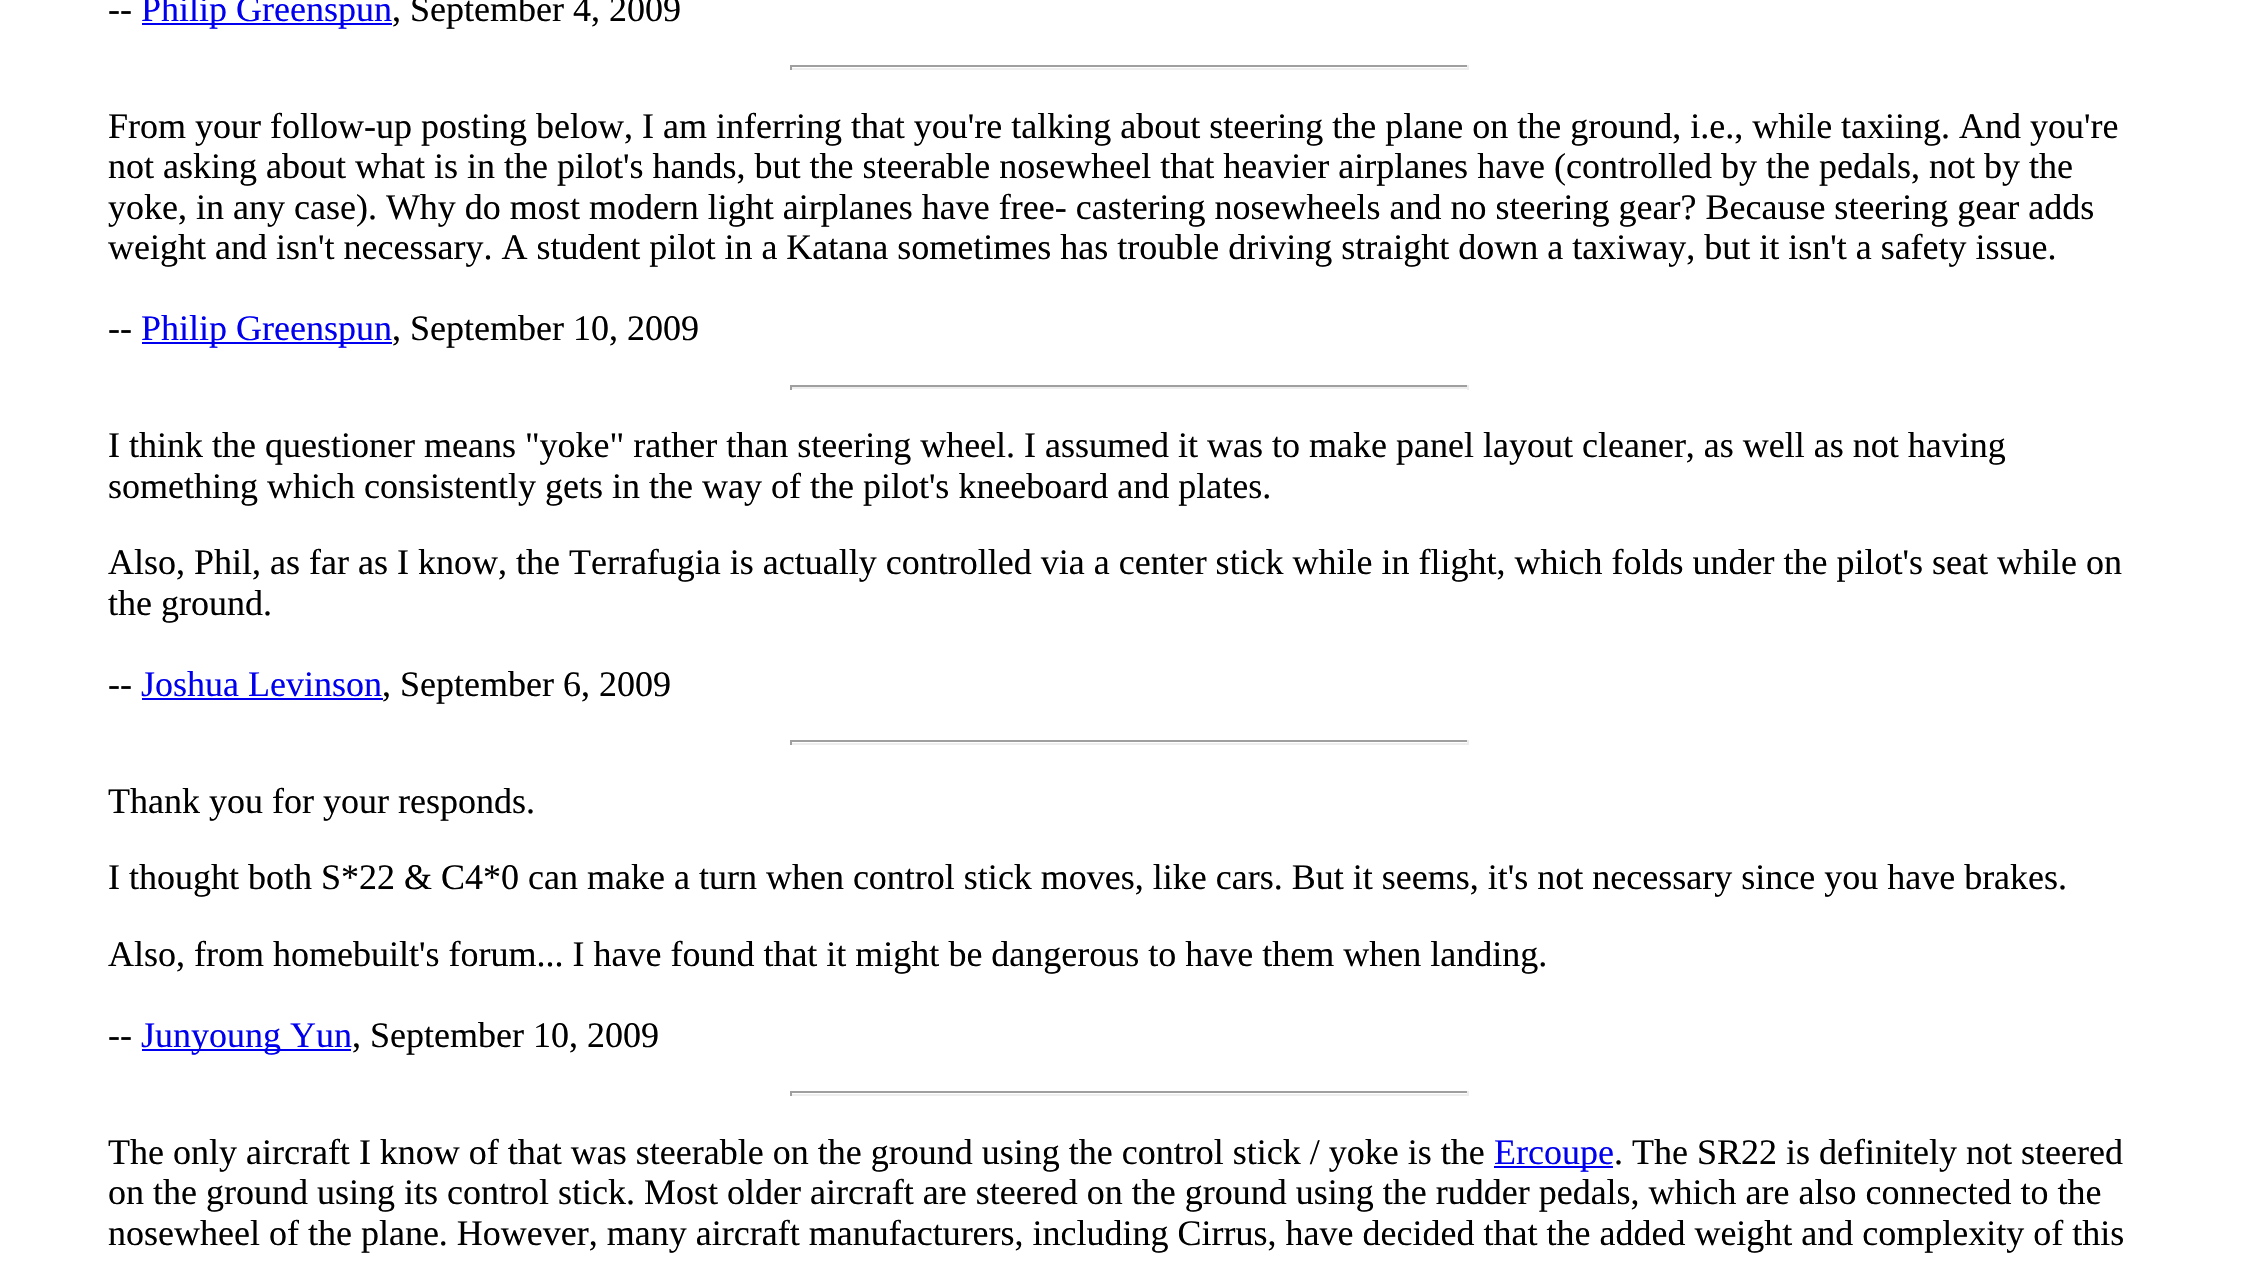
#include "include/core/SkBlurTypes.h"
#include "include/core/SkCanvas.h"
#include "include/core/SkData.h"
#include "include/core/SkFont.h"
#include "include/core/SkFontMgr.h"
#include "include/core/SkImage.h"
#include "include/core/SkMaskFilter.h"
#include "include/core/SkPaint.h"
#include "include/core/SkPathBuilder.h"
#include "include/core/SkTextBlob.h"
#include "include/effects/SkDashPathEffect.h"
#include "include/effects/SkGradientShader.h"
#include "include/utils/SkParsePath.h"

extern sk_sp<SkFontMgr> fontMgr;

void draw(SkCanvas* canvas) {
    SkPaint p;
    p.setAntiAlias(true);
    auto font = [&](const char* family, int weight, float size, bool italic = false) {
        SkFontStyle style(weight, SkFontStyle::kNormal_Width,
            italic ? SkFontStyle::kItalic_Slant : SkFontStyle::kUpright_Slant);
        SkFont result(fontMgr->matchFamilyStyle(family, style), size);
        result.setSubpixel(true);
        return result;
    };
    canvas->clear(0xFFFFFFFF);
    auto font1 = font("Liberation Serif", 400, 36);
    p.setColor(0xFF000000);
    canvas->drawString("--", 108, 21, font1, p);
    p.setColor(0xFF0000EE);
    canvas->drawRect(SkRect::MakeLTRB(142, 23, 392, 25), p);
    canvas->drawString("Philip Greenspun", 141, 21, font1, p);
    p.setColor(0xFF000000);
    canvas->drawString(", September 4, 2009", 392, 21, font1, p);
    {
        const struct { float l, t, r, b; SkColor color; } items[] = {
            {790, 65, 1469, 67, 0xFF9F9F9F},
            {1467, 65, 1469, 70, 0xFFEEEEEE},
            {790, 68, 1469, 70, 0xFFEEEEEE},
            {790, 65, 792, 70, 0xFF9F9F9F},
        };
        for (auto [l, t, r, b, color] : items) {
            p.setColor(color);
            canvas->drawRect(SkRect::MakeLTRB(l, t, r, b), p);
        }
    }
    p.setColor(0xFF000000);
    {
        const struct { const char* s; float x, y; } items[] = {
            {"From your follow-up posting below, I am inferring that you're talking about steering the plane on the ground, i.e., while taxiing. And you're", 108, 138},
            {"not asking about what is in the pilot's hands, but the steerable nosewheel that heavier airplanes have (controlled by the pedals, not by the", 108, 178},
            {"yoke, in any case). Why do most modern light airplanes have free- castering nosewheels and no steering gear? Because steering gear adds", 108, 219},
            {"weight and isn't necessary. A student pilot in a Katana sometimes has trouble driving straight down a taxiway, but it isn't a safety issue.", 108, 259},
            {"--", 108, 340},
        };
        for (auto [s, x, y] : items) {
            canvas->drawString(s, x, y, font1, p);
        }
    }
    p.setColor(0xFF0000EE);
    canvas->drawRect(SkRect::MakeLTRB(142, 342, 392, 344), p);
    canvas->drawString("Philip Greenspun", 141, 340, font1, p);
    p.setColor(0xFF000000);
    canvas->drawString(", September 10, 2009", 392, 340, font1, p);
    {
        const struct { float l, t, r, b; SkColor color; } items[] = {
            {790, 385, 1469, 387, 0xFF9F9F9F},
            {1467, 385, 1469, 390, 0xFFEEEEEE},
            {790, 387, 1469, 389, 0xFFEEEEEE},
            {790, 385, 792, 390, 0xFF9F9F9F},
        };
        for (auto [l, t, r, b, color] : items) {
            p.setColor(color);
            canvas->drawRect(SkRect::MakeLTRB(l, t, r, b), p);
        }
    }
    p.setColor(0xFF000000);
    {
        const struct { const char* s; float x, y; } items[] = {
            {"I think the questioner means \"yoke\" rather than steering wheel. I assumed it was to make panel layout cleaner, as well as not having", 108, 457},
            {"something which consistently gets in the way of the pilot's kneeboard and plates.", 108, 498},
            {"Also, Phil, as far as I know, the Terrafugia is actually controlled via a center stick while in flight, which folds under the pilot's seat while on", 108, 574},
            {"the ground.", 108, 615},
            {"--", 108, 696},
        };
        for (auto [s, x, y] : items) {
            canvas->drawString(s, x, y, font1, p);
        }
    }
    p.setColor(0xFF0000EE);
    canvas->drawString("Joshua Levinson", 141, 696, font1, p);
    canvas->drawRect(SkRect::MakeLTRB(142, 698, 383, 700), p);
    p.setColor(0xFF000000);
    canvas->drawString(", September 6, 2009", 382, 696, font1, p);
    {
        const struct { float l, t, r, b; SkColor color; } items[] = {
            {790, 740, 1469, 742, 0xFF9F9F9F},
            {1467, 740, 1469, 745, 0xFFEEEEEE},
            {790, 743, 1469, 745, 0xFFEEEEEE},
            {790, 740, 792, 745, 0xFF9F9F9F},
        };
        for (auto [l, t, r, b, color] : items) {
            p.setColor(color);
            canvas->drawRect(SkRect::MakeLTRB(l, t, r, b), p);
        }
    }
    p.setColor(0xFF000000);
    {
        const struct { const char* s; float x, y; } items[] = {
            {"Thank you for your responds.", 108, 813},
            {"I thought both S*22 & C4*0 can make a turn when control stick moves, like cars. But it seems, it's not necessary since you have brakes.", 108, 889},
            {"Also, from homebuilt's forum... I have found that it might be dangerous to have them when landing.", 108, 966},
            {"--", 108, 1047},
        };
        for (auto [s, x, y] : items) {
            canvas->drawString(s, x, y, font1, p);
        }
    }
    p.setColor(0xFF0000EE);
    canvas->drawRect(SkRect::MakeLTRB(142, 1049, 351, 1051), p);
    canvas->drawString("Junyoung Yun", 141, 1047, font1, p);
    p.setColor(0xFF000000);
    canvas->drawString(", September 10, 2009", 352, 1047, font1, p);
    {
        const struct { float l, t, r, b; SkColor color; } items[] = {
            {790, 1091, 1469, 1093, 0xFF9F9F9F},
            {1467, 1091, 1469, 1096, 0xFFEEEEEE},
            {790, 1094, 1469, 1096, 0xFFEEEEEE},
            {790, 1091, 792, 1096, 0xFF9F9F9F},
        };
        for (auto [l, t, r, b, color] : items) {
            p.setColor(color);
            canvas->drawRect(SkRect::MakeLTRB(l, t, r, b), p);
        }
    }
    p.setColor(0xFF000000);
    canvas->drawString("The only aircraft I know of that was steerable on the ground using the control stick / yoke is the", 108, 1164, font1, p);
    p.setColor(0xFF0000EE);
    canvas->drawRect(SkRect::MakeLTRB(1494, 1166, 1613, 1168), p);
    canvas->drawString("Ercoupe", 1494, 1164, font1, p);
    p.setColor(0xFF000000);
    {
        const struct { const char* s; float x, y; } items[] = {
            {". The SR22 is definitely not steered", 1614, 1164},
            {"on the ground using its control stick. Most older aircraft are steered on the ground using the rudder pedals, which are also connected to the", 108, 1204},
            {"nosewheel of the plane. However, many aircraft manufacturers, including Cirrus, have decided that the added weight and complexity of this", 108, 1245},
        };
        for (auto [s, x, y] : items) {
            canvas->drawString(s, x, y, font1, p);
        }
    }
}
